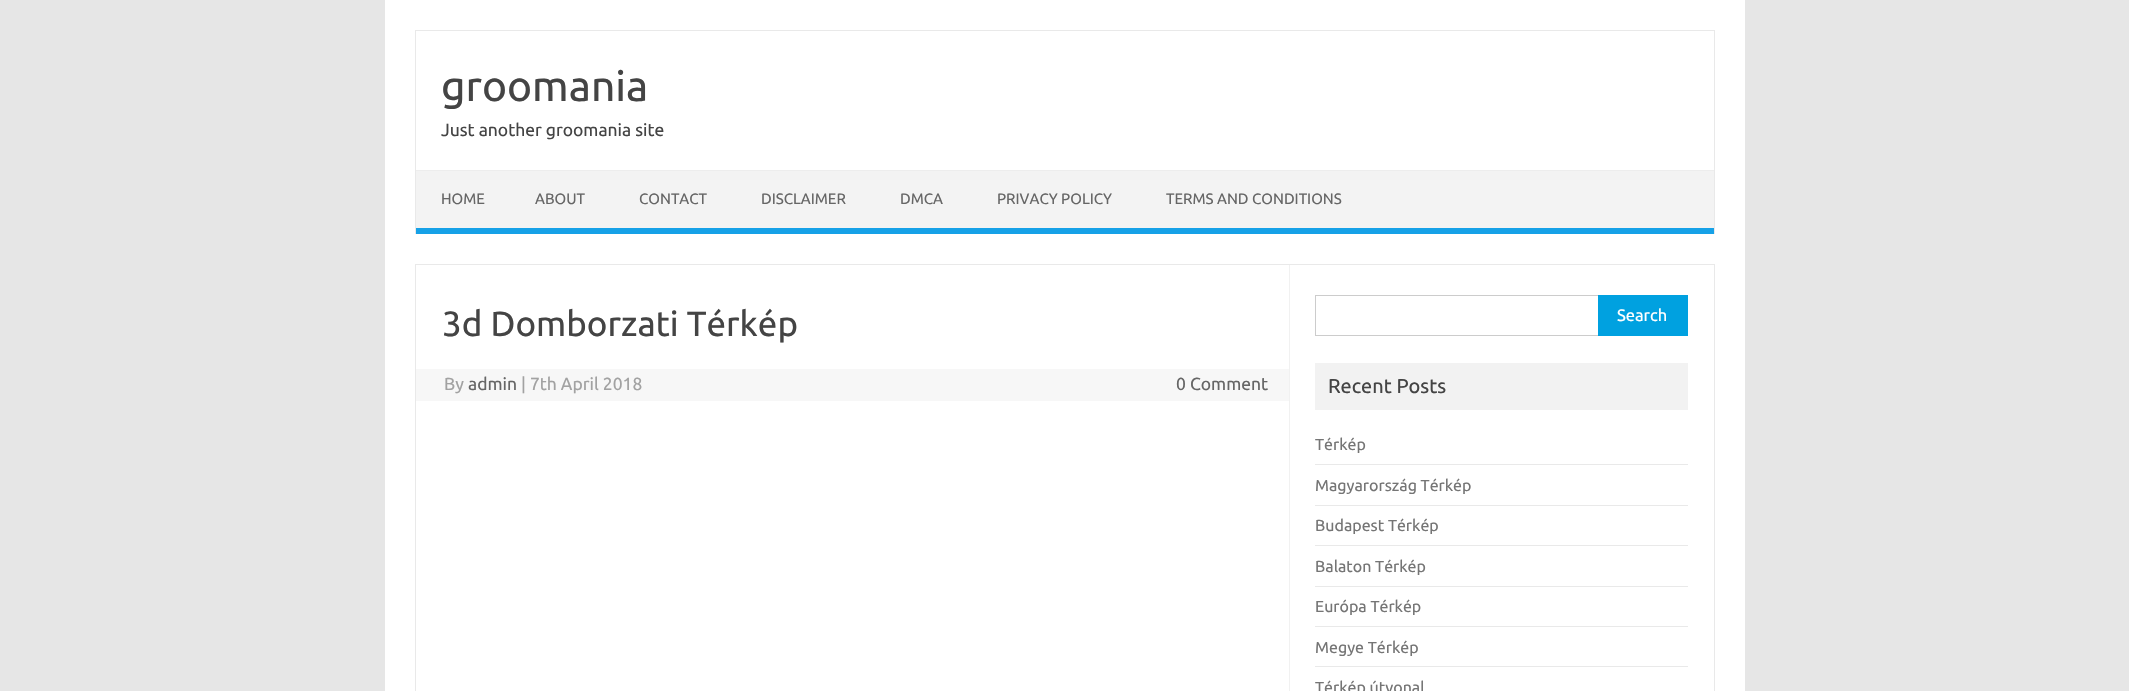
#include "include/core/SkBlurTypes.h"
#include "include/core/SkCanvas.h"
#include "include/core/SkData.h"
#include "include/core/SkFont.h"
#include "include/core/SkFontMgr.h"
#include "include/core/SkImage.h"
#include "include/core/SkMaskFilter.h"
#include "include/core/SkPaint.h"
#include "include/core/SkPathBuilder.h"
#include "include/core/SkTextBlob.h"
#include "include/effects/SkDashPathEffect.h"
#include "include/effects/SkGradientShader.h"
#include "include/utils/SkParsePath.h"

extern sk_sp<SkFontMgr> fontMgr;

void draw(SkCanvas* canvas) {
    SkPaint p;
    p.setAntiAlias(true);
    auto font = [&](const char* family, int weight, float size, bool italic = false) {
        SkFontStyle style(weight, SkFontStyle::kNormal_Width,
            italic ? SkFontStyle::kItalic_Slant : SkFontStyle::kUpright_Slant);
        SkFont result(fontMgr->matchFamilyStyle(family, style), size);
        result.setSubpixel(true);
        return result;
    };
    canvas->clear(0xFFE6E6E6);
    {
        const struct { float l, t, r, b; SkColor color; } items[] = {
            {385, 0, 1745, 691, 0xFFFFFFFF},
            {415, 30, 1715, 31, 0xFFE9E9E9},
            {1714, 30, 1715, 234, 0xFFE9E9E9},
            {415, 30, 416, 234, 0xFFE9E9E9},
        };
        for (auto [l, t, r, b, color] : items) {
            p.setColor(color);
            canvas->drawRect(SkRect::MakeLTRB(l, t, r, b), p);
        }
    }
    auto font1 = font("Ubuntu", 400, 42.5f);
    p.setColor(0xFF444444);
    canvas->drawString("groomania", 441, 101, font1, p);
    auto font2 = font("Ubuntu", 400, 17.5f);
    canvas->drawString("Just another groomania site", 441, 136, font2, p);
    {
        const struct { float l, t, r, b; SkColor color; } items[] = {
            {416, 171, 1714, 228, 0xFFF3F3F3},
            {416, 170, 1714, 171, 0xFFEDEDED},
            {416, 228, 1714, 234, 0xFF16A1E7},
        };
        for (auto [l, t, r, b, color] : items) {
            p.setColor(color);
            canvas->drawRect(SkRect::MakeLTRB(l, t, r, b), p);
        }
    }
    auto font3 = font("Ubuntu", 400, 15);
    p.setColor(0xFF666666);
    {
        const struct { const char* s; float x, y; } items[] = {
            {"HOME", 441, 204},
            {"ABOUT", 535, 204},
            {"CONTACT", 639, 204},
            {"DISCLAIMER", 761, 204},
            {"DMCA", 900, 204},
            {"PRIVACY POLICY", 997, 204},
            {"TERMS AND CONDITIONS", 1166, 204},
        };
        for (auto [s, x, y] : items) {
            canvas->drawString(s, x, y, font3, p);
        }
    }
    p.setStyle(SkPaint::kStroke_Style);
    p.setStrokeWidth(1);
    p.setColor(0xFFE9E9E9);
    canvas->drawRect(SkRect::MakeLTRB(415.5f, 264.5f, 1714.5f, 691.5f), p);
    p.setStyle(SkPaint::kFill_Style);
    p.setColor(0xFFF1F1F1);
    canvas->drawRect(SkRect::MakeLTRB(1289, 265, 1290, 691), p);
    auto font4 = font("Ubuntu", 400, 35);
    p.setColor(0xFF444444);
    canvas->drawString("3d Domborzati Térkép", 442, 336, font4, p);
    p.setColor(0xFFF7F7F7);
    canvas->drawRect(SkRect::MakeLTRB(416, 369, 1289, 401), p);
    p.setColor(0xFFA2A2A2);
    canvas->drawString("By", 444, 390, font2, p);
    p.setColor(0xFF666666);
    canvas->drawString("admin", 468, 390, font2, p);
    p.setColor(0xFFA2A2A2);
    canvas->drawString("| 7th April 2018", 521, 390, font2, p);
    p.setColor(0xFF666666);
    canvas->drawString("0 Comment", 1176, 390, font2, p);
    p.setStyle(SkPaint::kStroke_Style);
    p.setColor(0xFFCCCCCC);
    canvas->drawRect(SkRect::MakeLTRB(1315.5f, 295.5f, 1599.5f, 335.5f), p);
    p.setStyle(SkPaint::kFill_Style);
    p.setColor(0xFF00A1E0);
    canvas->drawRect(SkRect::MakeLTRB(1598, 295, 1688, 336), p);
    auto font5 = font("Ubuntu", 400, 16.5f);
    p.setColor(0xFFFFFFFF);
    canvas->drawString("Search", 1617, 321, font5, p);
    p.setColor(0xFFF2F2F2);
    canvas->drawRect(SkRect::MakeLTRB(1315, 363, 1688, 410), p);
    auto font6 = font("Ubuntu", 400, 20);
    p.setColor(0xFF444444);
    canvas->drawString("Recent Posts", 1328, 393, font6, p);
    p.setColor(0xFFE9E9E9);
    canvas->drawRect(SkRect::MakeLTRB(1315, 464, 1688, 465), p);
    auto font7 = font("Ubuntu", 400, 16);
    p.setColor(0xFF757575);
    canvas->drawString("Térkép", 1315, 450, font7, p);
    p.setColor(0xFFE9E9E9);
    canvas->drawRect(SkRect::MakeLTRB(1315, 505, 1688, 506), p);
    p.setColor(0xFF757575);
    canvas->drawString("Magyarország Térkép", 1315, 491, font7, p);
    p.setColor(0xFFE9E9E9);
    canvas->drawRect(SkRect::MakeLTRB(1315, 545, 1688, 546), p);
    p.setColor(0xFF757575);
    canvas->drawString("Budapest Térkép", 1315, 531, font7, p);
    p.setColor(0xFFE9E9E9);
    canvas->drawRect(SkRect::MakeLTRB(1315, 586, 1688, 587), p);
    p.setColor(0xFF757575);
    canvas->drawString("Balaton Térkép", 1315, 572, font7, p);
    p.setColor(0xFFE9E9E9);
    canvas->drawRect(SkRect::MakeLTRB(1315, 626, 1688, 627), p);
    p.setColor(0xFF757575);
    canvas->drawString("Európa Térkép", 1315, 612, font7, p);
    p.setColor(0xFFE9E9E9);
    canvas->drawRect(SkRect::MakeLTRB(1315, 666, 1688, 667), p);
    p.setColor(0xFF757575);
    canvas->drawString("Megye Térkép", 1315, 653, font7, p);
    canvas->drawString("Térkép útvonal", 1315, 693, font7, p);
}
